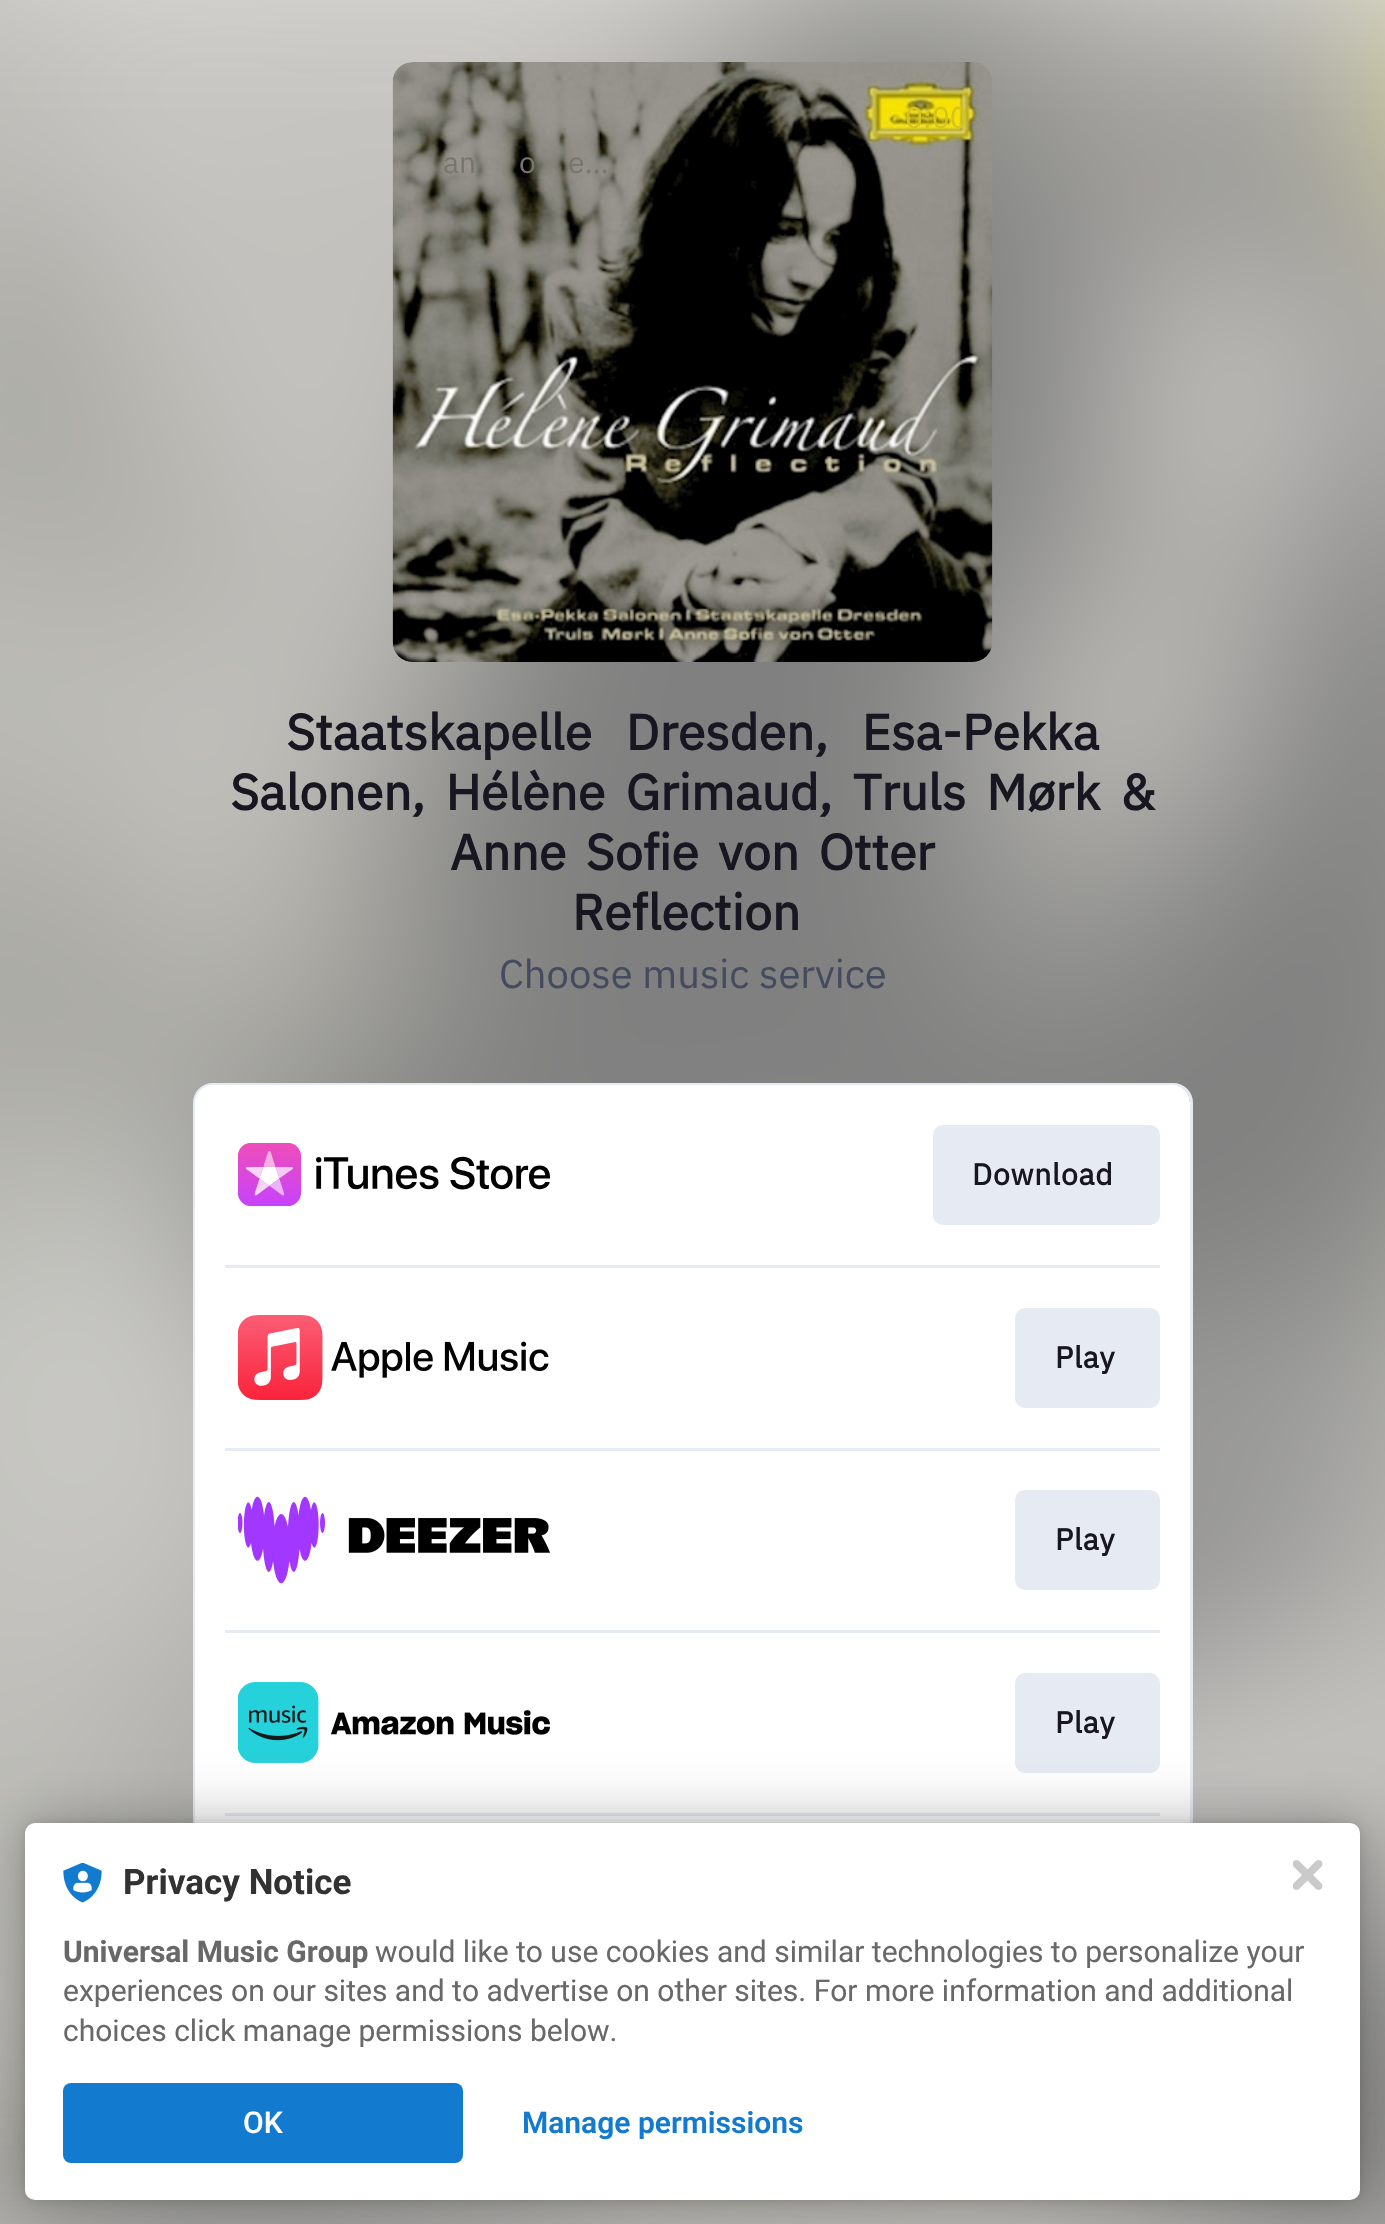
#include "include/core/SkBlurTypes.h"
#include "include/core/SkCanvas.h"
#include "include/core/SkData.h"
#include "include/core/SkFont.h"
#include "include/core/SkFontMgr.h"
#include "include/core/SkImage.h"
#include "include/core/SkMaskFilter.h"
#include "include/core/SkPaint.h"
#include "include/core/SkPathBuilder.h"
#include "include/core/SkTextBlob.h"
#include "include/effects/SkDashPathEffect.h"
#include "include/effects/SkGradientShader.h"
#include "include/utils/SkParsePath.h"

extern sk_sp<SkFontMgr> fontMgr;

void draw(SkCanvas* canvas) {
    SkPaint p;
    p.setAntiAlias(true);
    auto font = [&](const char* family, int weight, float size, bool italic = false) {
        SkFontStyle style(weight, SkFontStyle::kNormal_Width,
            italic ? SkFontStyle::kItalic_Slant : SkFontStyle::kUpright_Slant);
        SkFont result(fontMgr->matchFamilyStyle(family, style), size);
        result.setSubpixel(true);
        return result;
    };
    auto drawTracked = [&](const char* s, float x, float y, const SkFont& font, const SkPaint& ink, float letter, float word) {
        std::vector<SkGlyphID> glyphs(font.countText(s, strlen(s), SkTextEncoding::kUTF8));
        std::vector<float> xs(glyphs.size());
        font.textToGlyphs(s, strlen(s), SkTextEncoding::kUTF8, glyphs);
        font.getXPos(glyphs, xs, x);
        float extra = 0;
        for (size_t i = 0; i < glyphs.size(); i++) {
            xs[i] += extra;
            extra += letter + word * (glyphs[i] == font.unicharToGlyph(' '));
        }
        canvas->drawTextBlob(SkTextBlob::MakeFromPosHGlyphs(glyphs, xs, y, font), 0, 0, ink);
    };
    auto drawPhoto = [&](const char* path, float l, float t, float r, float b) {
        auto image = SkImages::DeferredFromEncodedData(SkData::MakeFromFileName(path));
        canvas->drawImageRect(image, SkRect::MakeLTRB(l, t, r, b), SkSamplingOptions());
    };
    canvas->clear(0xFFFFFFFF);
    drawPhoto("media/1.png", 0, 0, 1385, 2224);
    drawPhoto("media/2.png", 392, 62, 993, 662);
    auto font1 = font("IBM Plex Sans", 400, 30);
    p.setColor(0xFFD6C519);
    canvas->drawString("0:00", 905, 128, font1, p);
    p.setColor(0xFF77766D);
    {
        const struct { const char* s; float x, y; } items[] = {
            {"an", 443, 173},
            {"o", 519, 173},
            {"e…", 568, 173},
        };
        for (auto [s, x, y] : items) {
            canvas->drawString(s, x, y, font1, p);
        }
    }
    auto font2 = font("IBM Plex Sans", 700, 50);
    p.setColor(0xFF181721);
    drawTracked("Staatskapelle Dresden, Esa-Pekka", 286, 750, font2, p, 0, 22);
    drawTracked("Salonen, Hélène Grimaud, Truls Mørk &", 230, 810, font2, p, 0, 8.5f);
    drawTracked("Anne Sofie von Otter", 450, 870, font2, p, 0, 7.5f);
    canvas->drawString("Reflection", 572, 930, font2, p);
    auto font3 = font("IBM Plex Sans", 400, 40);
    p.setColor(0xFF454B5F);
    canvas->drawString("Choose music service", 499, 988, font3, p);
    p.setStyle(SkPaint::kStroke_Style);
    p.setStrokeWidth(3);
    p.setColor(0xFFE6EAF2);
    canvas->drawRoundRect(SkRect::MakeLTRB(194.5f, 1084.5f, 1191.5f, 1996.5f), 18.5f, 18.5f, p);
    p.setStyle(SkPaint::kFill_Style);
    p.setColor(0xFFFFFFFF);
    canvas->drawRoundRect(SkRect::MakeLTRB(195, 1085, 1190, 1995), 18, 18, p);
    drawPhoto("media/3.png", 238, 1143, 550, 1206);
    p.setColor(0xFFE6EAF2);
    canvas->drawRoundRect(SkRect::MakeLTRB(933, 1125, 1160, 1225), 10, 10, p);
    auto font4 = font("IBM Plex Sans", 700, 30);
    p.setColor(0xFF181721);
    drawTracked("Download", 972, 1185, font4, p, 0.75f, 0);
    p.setColor(0xFFE6EAF2);
    canvas->drawRect(SkRect::MakeLTRB(225, 1265, 1160, 1268), p);
    drawPhoto("media/4.png", 238, 1315, 549, 1400);
    canvas->drawRoundRect(SkRect::MakeLTRB(1015, 1308, 1160, 1408), 10, 10, p);
    p.setColor(0xFF181721);
    drawTracked("Play", 1055, 1368, font4, p, 0.75f, 0);
    p.setColor(0xFFE6EAF2);
    canvas->drawRect(SkRect::MakeLTRB(225, 1448, 1160, 1451), p);
    drawPhoto("media/5.png", 238, 1496, 550, 1584);
    canvas->drawRoundRect(SkRect::MakeLTRB(1015, 1490, 1160, 1590), 10, 10, p);
    p.setColor(0xFF181721);
    drawTracked("Play", 1055, 1550, font4, p, 0.75f, 0);
    p.setColor(0xFFE6EAF2);
    canvas->drawRect(SkRect::MakeLTRB(225, 1630, 1160, 1633), p);
    drawPhoto("media/6.png", 238, 1682, 550, 1763);
    canvas->drawRoundRect(SkRect::MakeLTRB(1015, 1673, 1160, 1773), 10, 10, p);
    p.setColor(0xFF181721);
    drawTracked("Play", 1055, 1733, font4, p, 0.75f, 0);
    p.setColor(0xFFE6EAF2);
    canvas->drawRect(SkRect::MakeLTRB(225, 1813, 1160, 1816), p);
    p.setColor(0x1F000000);
    p.setMaskFilter(SkMaskFilter::MakeBlur(kNormal_SkBlurStyle, 5));
    canvas->drawRoundRect(SkRect::MakeLTRB(25, 1823, 1360, 2200), 10, 10, p);
    p.setMaskFilter(nullptr);
    p.setColor(0x4D000000);
    p.setMaskFilter(SkMaskFilter::MakeBlur(kNormal_SkBlurStyle, 30));
    canvas->drawRoundRect(SkRect::MakeLTRB(25, 1823, 1360, 2200), 10, 10, p);
    p.setMaskFilter(nullptr);
    p.setColor(0xFFFFFFFF);
    canvas->drawRoundRect(SkRect::MakeLTRB(25, 1823, 1360, 2200), 10, 10, p);
    drawPhoto("media/7.png", 63, 1863, 102, 1903);
    auto font5 = font("Roboto", 700, 35);
    p.setColor(0xFF323232);
    canvas->drawString("Privacy Notice", 123, 1894, font5, p);
    auto font6 = font("Roboto", 700, 30);
    p.setColor(0xFF686868);
    canvas->drawString("Universal Music Group", 63, 1962, font6, p);
    auto font7 = font("Roboto", 400, 30);
    {
        const struct { const char* s; float x, y; } items[] = {
            {"would like to use cookies and similar technologies to personalize your", 375, 1962},
            {"experiences on our sites and to advertise on other sites. For more information and additional", 63, 2001},
            {"choices click manage permissions below.", 63, 2041},
        };
        for (auto [s, x, y] : items) {
            canvas->drawString(s, x, y, font7, p);
        }
    }
    p.setColor(0xFF137BCF);
    canvas->drawRoundRect(SkRect::MakeLTRB(63, 2083, 463, 2163), 8, 8, p);
    auto font8 = font("Roboto", 500, 30);
    p.setColor(0xFFFFFFFF);
    canvas->drawString("OK", 243, 2133, font8, p);
    auto font9 = font("Roboto", 600, 30);
    p.setColor(0xFF137BCF);
    canvas->drawString("Manage permissions", 522, 2133, font9, p);
    drawPhoto("media/8.png", 1293, 1860, 1323, 1890);
}
